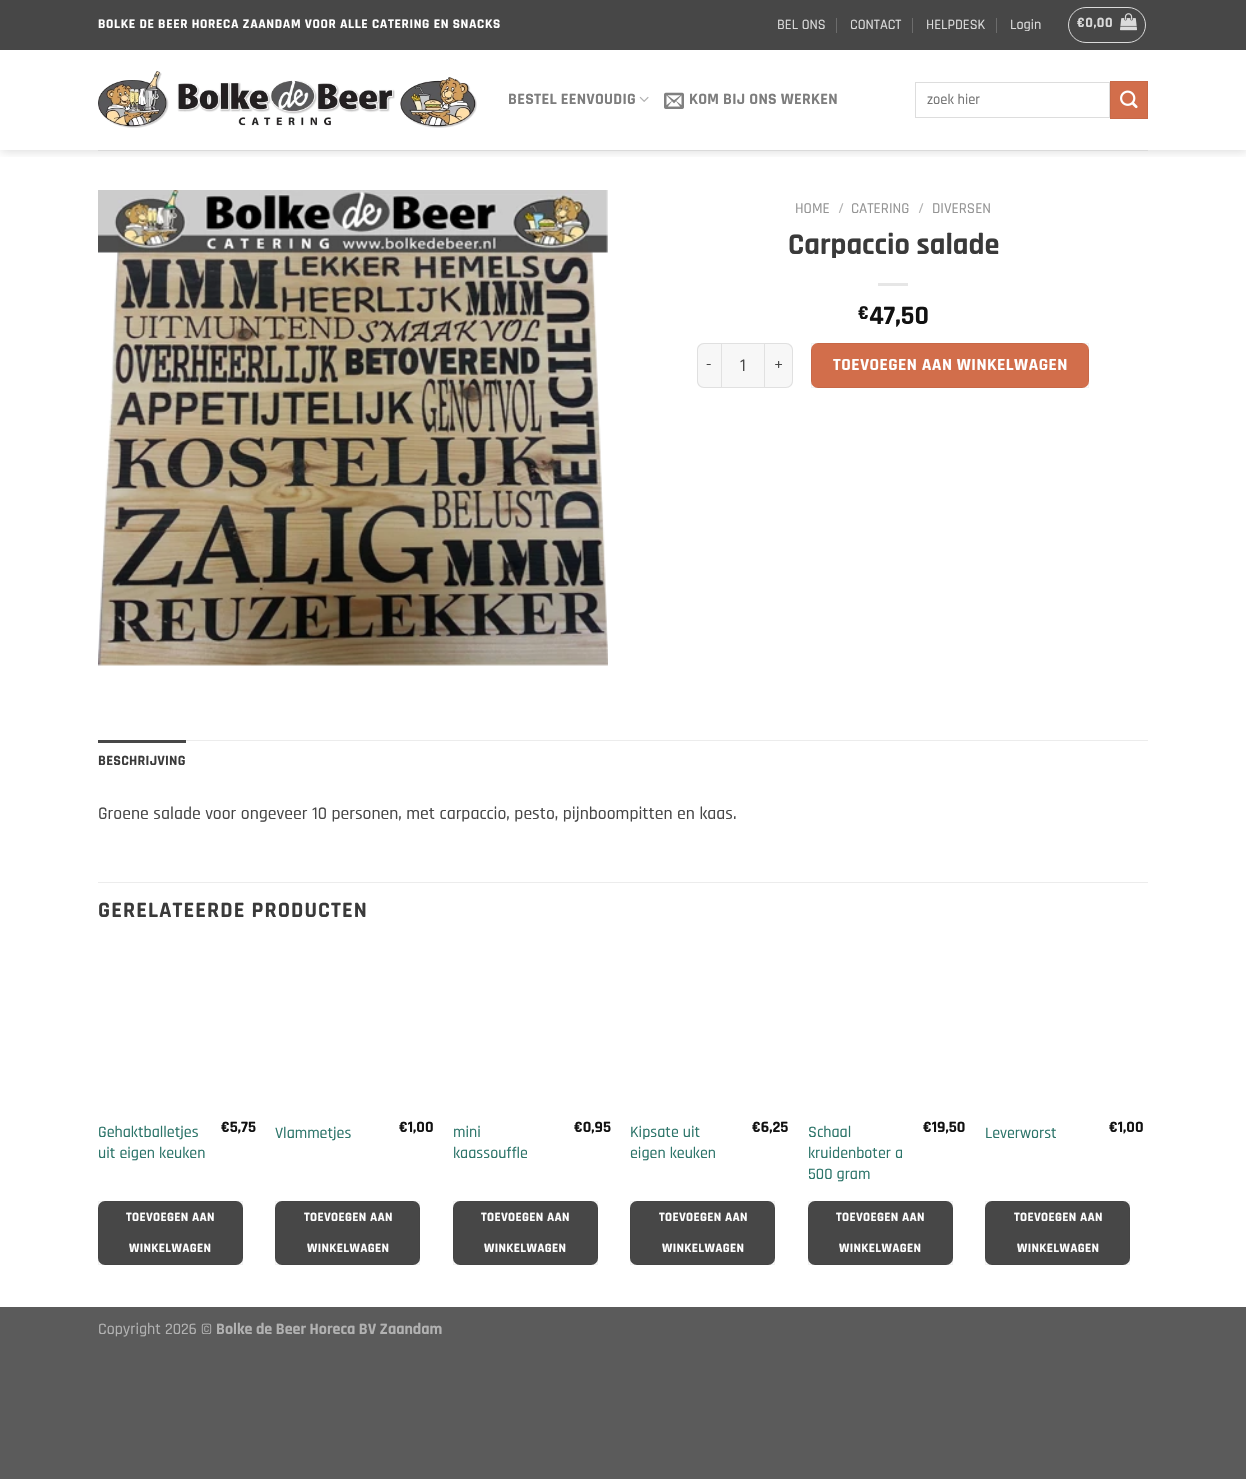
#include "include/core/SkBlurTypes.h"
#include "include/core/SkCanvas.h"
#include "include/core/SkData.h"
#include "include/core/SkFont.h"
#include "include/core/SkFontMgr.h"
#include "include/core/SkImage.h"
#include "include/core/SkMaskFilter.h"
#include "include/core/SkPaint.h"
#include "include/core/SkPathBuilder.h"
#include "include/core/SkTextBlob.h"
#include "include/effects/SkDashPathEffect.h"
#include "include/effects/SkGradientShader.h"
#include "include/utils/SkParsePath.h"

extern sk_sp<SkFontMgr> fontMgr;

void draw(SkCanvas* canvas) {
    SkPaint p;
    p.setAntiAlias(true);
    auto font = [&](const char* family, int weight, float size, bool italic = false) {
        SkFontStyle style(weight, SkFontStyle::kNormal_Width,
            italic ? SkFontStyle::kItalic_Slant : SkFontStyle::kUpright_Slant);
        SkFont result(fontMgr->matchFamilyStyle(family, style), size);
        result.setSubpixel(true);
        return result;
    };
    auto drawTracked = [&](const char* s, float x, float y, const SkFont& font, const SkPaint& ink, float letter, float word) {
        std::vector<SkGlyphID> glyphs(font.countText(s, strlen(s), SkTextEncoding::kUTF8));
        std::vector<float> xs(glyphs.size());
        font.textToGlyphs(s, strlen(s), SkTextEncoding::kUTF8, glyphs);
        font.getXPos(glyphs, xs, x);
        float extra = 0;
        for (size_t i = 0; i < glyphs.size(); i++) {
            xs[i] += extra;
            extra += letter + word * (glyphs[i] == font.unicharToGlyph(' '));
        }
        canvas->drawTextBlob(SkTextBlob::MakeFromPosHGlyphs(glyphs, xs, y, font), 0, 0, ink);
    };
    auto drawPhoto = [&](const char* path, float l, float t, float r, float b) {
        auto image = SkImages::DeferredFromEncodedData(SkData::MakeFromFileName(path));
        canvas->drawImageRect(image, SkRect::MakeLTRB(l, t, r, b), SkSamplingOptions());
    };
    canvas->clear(0xFF5B5B5B);
    p.setColor(0xFFFFFFFF);
    canvas->drawRect(SkRect::MakeLTRB(0, 50, 1246, 1307), p);
    canvas->save();
    canvas->clipRect(SkRect::MakeLTRB(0, 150, 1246, 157));
    p.setColor(0x26000000);
    p.setMaskFilter(SkMaskFilter::MakeBlur(kNormal_SkBlurStyle, 5));
    canvas->drawRect(SkRect::MakeLTRB(1, 1, 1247, 151), p);
    p.setMaskFilter(nullptr);
    canvas->restore();
    p.setColor(0xFF474747);
    canvas->drawRect(SkRect::MakeLTRB(0, 0, 1246, 50), p);
    auto font1 = font("Rajdhani", 700, 13.3f);
    p.setColor(0xFFFFFFFF);
    drawTracked("BOLKE DE BEER HORECA ZAANDAM VOOR ALLE CATERING EN SNACKS", 98, 28, font1, p, 0.67f, 0);
    auto font2 = font("Rajdhani", 500, 14.25f);
    p.setColor(0xFFDADADA);
    canvas->drawString("BEL ONS", 777, 29, font2, p);
    p.setColor(0xFF6C6C6C);
    canvas->drawRect(SkRect::MakeLTRB(836, 18, 837, 33), p);
    p.setColor(0xFFDADADA);
    canvas->drawString("CONTACT", 850, 29, font2, p);
    p.setColor(0xFF6C6C6C);
    canvas->drawRect(SkRect::MakeLTRB(912, 18, 913, 33), p);
    p.setColor(0xFFDADADA);
    canvas->drawString("HELPDESK", 926, 29, font2, p);
    p.setColor(0xFF6C6C6C);
    canvas->drawRect(SkRect::MakeLTRB(996, 18, 997, 33), p);
    p.setColor(0xFFDADADA);
    canvas->drawString("Login", 1010, 29, font2, p);
    p.setStyle(SkPaint::kStroke_Style);
    p.setStrokeWidth(1);
    canvas->drawRoundRect(SkRect::MakeLTRB(1068.5f, 7.5f, 1145.5f, 42.5f), 17.5f, 17.5f, p);
    auto font3 = font("Rajdhani", 700, 14.25f);
    p.setStyle(SkPaint::kFill_Style);
    drawTracked("€0,00", 1077, 27, font3, p, 0.5f, 0);
    drawPhoto("media/1.png", 1120, 13, 1137, 31);
    drawPhoto("media/2.png", 98, 71, 477, 128);
    auto font4 = font("Rajdhani", 700, 16);
    p.setColor(0xFF7D7D7D);
    drawTracked("BESTEL EENVOUDIG", 508, 104, font4, p, 0.3f, 0);
    drawPhoto("media/3.png", 639, 96, 649, 102);
    drawPhoto("media/4.png", 664, 92, 684, 109);
    drawTracked("KOM BIJ ONS WERKEN", 689, 104, font4, p, 0.3f, 0);
    p.setStyle(SkPaint::kStroke_Style);
    p.setColor(0xFFDDDDDD);
    canvas->drawRect(SkRect::MakeLTRB(915.5f, 82.5f, 1109.5f, 117.5f), p);
    auto font5 = font("Rajdhani", 500, 14.5f);
    p.setStyle(SkPaint::kFill_Style);
    p.setColor(0xFF757575);
    canvas->drawString("zoek hier", 927, 104, font5, p);
    p.setColor(0xFFD26E4B);
    canvas->drawRect(SkRect::MakeLTRB(1110.5f, 81.5f, 1147.5f, 118.5f), p);
    p.setStyle(SkPaint::kStroke_Style);
    p.setColor(0xFFC86947);
    canvas->drawRect(SkRect::MakeLTRB(1110.5f, 81.5f, 1147.5f, 118.5f), p);
    drawPhoto("media/5.png", 1120, 90, 1138, 109);
    p.setStyle(SkPaint::kFill_Style);
    p.setColor(0xFFDADADA);
    canvas->drawRect(SkRect::MakeLTRB(98, 150, 1148, 151), p);
    drawPhoto("media/6.png", 98, 190, 608, 666);
    auto font6 = font("Rajdhani", 500, 15);
    p.setColor(0xFF949494);
    canvas->drawString("HOME", 795, 213, font6, p);
    p.setColor(0xFFB2B2B2);
    canvas->drawString("/", 838, 213, font6, p);
    p.setColor(0xFF949494);
    canvas->drawString("CATERING", 851, 213, font6, p);
    p.setColor(0xFFB2B2B2);
    canvas->drawString("/", 918, 213, font6, p);
    p.setColor(0xFF949494);
    canvas->drawString("DIVERSEN", 932, 213, font6, p);
    auto font7 = font("Rajdhani", 700, 30.25f);
    p.setColor(0xFF3A3A3A);
    canvas->drawString("Carpaccio salade", 788, 254, font7, p);
    p.setColor(0xFFE6E6E6);
    canvas->drawRect(SkRect::MakeLTRB(878, 283, 908, 286), p);
    auto font8 = font("Rajdhani", 700, 20);
    p.setColor(0xFF111111);
    canvas->drawString("€", 858, 319, font8, p);
    auto font9 = font("Rajdhani", 700, 27);
    canvas->drawString("47,50", 869, 324, font9, p);
    p.setColor(0xFFF7F7F7);
    canvas->drawPath(SkPathBuilder().moveTo(704, 343).lineTo(721, 343).lineTo(721, 388).lineTo(704, 388).cubicTo(700, 388, 697, 385, 697, 381).lineTo(697, 350).cubicTo(697, 346, 700, 343, 704, 343).close().detach(), p);
    p.setColor(0x17000000);
    canvas->drawPath(SkPathBuilder(SkPathFillType::kEvenOdd).moveTo(704, 343).lineTo(721, 343).lineTo(721, 388).lineTo(704, 388).cubicTo(700, 388, 697, 385, 697, 381).lineTo(697, 350).cubicTo(697, 346, 700, 343, 704, 343).close().moveTo(704, 344).lineTo(721, 344).lineTo(721, 387).lineTo(704, 387).cubicTo(701, 387, 698, 384, 698, 381).lineTo(698, 350).cubicTo(698, 347, 701, 344, 704, 344).close().detach(), p);
    auto font10 = font("Rajdhani", 500, 17.25f);
    p.setColor(0xFF474747);
    drawTracked("-", 706, 370, font10, p, 0.5f, 0);
    p.setColor(0xFFF7F7F7);
    canvas->drawRect(SkRect::MakeLTRB(721.5f, 343.5f, 764.5f, 387.5f), p);
    p.setStyle(SkPaint::kStroke_Style);
    p.setColor(0xFFE1E1E1);
    canvas->drawRect(SkRect::MakeLTRB(721.5f, 343.5f, 764.5f, 387.5f), p);
    auto font11 = font("Rajdhani", 500, 17.75f);
    p.setStyle(SkPaint::kFill_Style);
    p.setColor(0xFF474747);
    canvas->drawString("1", 740, 371, font11, p);
    p.setColor(0xFFF7F7F7);
    canvas->drawPath(SkPathBuilder().moveTo(765, 343).lineTo(786, 343).cubicTo(790, 343, 793, 346, 793, 350).lineTo(793, 381).cubicTo(793, 385, 790, 388, 786, 388).lineTo(765, 388).close().detach(), p);
    p.setColor(0x17000000);
    canvas->drawPath(SkPathBuilder(SkPathFillType::kEvenOdd).moveTo(765, 343).lineTo(786, 343).cubicTo(790, 343, 793, 346, 793, 350).lineTo(793, 381).cubicTo(793, 385, 790, 388, 786, 388).lineTo(765, 388).close().moveTo(765, 344).lineTo(786, 344).cubicTo(789, 344, 792, 347, 792, 350).lineTo(792, 381).cubicTo(792, 384, 789, 387, 786, 387).lineTo(765, 387).close().detach(), p);
    p.setColor(0xFF474747);
    drawTracked("+", 774, 370, font10, p, 0.5f, 0);
    p.setColor(0xFFD26E4B);
    canvas->drawRoundRect(SkRect::MakeLTRB(811, 343, 1089, 388), 7, 7, p);
    p.setStyle(SkPaint::kStroke_Style);
    p.setColor(0x0D000000);
    canvas->drawRect(SkRect::MakeLTRB(811.5f, 343.5f, 1088.5f, 387.5f), p);
    auto font12 = font("Rajdhani", 700, 17.25f);
    p.setStyle(SkPaint::kFill_Style);
    p.setColor(0xFFFFFFFF);
    drawTracked("TOEVOEGEN AAN WINKELWAGEN", 833, 370, font12, p, 0.5f, 0);
    p.setColor(0xFFECECEC);
    canvas->drawRect(SkRect::MakeLTRB(186, 740, 1148, 741), p);
    p.setColor(0xFF474747);
    canvas->drawRect(SkRect::MakeLTRB(98, 740, 186, 743), p);
    p.setColor(0xFF3A3A3A);
    drawTracked("BESCHRIJVING", 98, 765, font3, p, 0.25f, 0);
    p.setColor(0xFF474747);
    canvas->drawString("Groene salade voor ongeveer 10 personen, met carpaccio, pesto, pijnboompitten en kaas.", 98, 819, font11, p);
    p.setColor(0xFFECECEC);
    canvas->drawRect(SkRect::MakeLTRB(98, 882, 1148, 883), p);
    auto font13 = font("Rajdhani", 700, 22.25f);
    p.setColor(0xFF3A3A3A);
    drawTracked("GERELATEERDE PRODUCTEN", 98, 917, font13, p, 1.1f, 0);
    auto font14 = font("Rajdhani", 500, 16);
    p.setColor(0xFF2D756A);
    canvas->drawString("Gehaktballetjes", 98, 1137, font14, p);
    canvas->drawString("uit eigen keuken", 98, 1158, font14, p);
    p.setColor(0xFF111111);
    canvas->drawString("€5,75", 221, 1132, font4, p);
    p.setColor(0xFF474747);
    canvas->drawRoundRect(SkRect::MakeLTRB(98, 1201, 243, 1265), 7, 7, p);
    p.setStyle(SkPaint::kStroke_Style);
    p.setColor(0x0D000000);
    canvas->drawRect(SkRect::MakeLTRB(98.5f, 1201.5f, 242.5f, 1264.5f), p);
    auto font15 = font("Rajdhani", 700, 12.75f);
    p.setStyle(SkPaint::kFill_Style);
    p.setColor(0xFFFFFFFF);
    drawTracked("TOEVOEGEN AAN", 126, 1221, font15, p, 0.4f, 0);
    drawTracked("WINKELWAGEN", 129, 1252, font15, p, 0.4f, 0);
    p.setColor(0xFF2D756A);
    canvas->drawString("Vlammetjes", 275, 1138, font14, p);
    p.setColor(0xFF111111);
    canvas->drawString("€1,00", 399, 1132, font4, p);
    p.setColor(0xFF474747);
    canvas->drawRoundRect(SkRect::MakeLTRB(275, 1201, 420, 1265), 7, 7, p);
    p.setStyle(SkPaint::kStroke_Style);
    p.setColor(0x0D000000);
    canvas->drawRect(SkRect::MakeLTRB(275.5f, 1201.5f, 419.5f, 1264.5f), p);
    p.setStyle(SkPaint::kFill_Style);
    p.setColor(0xFFFFFFFF);
    drawTracked("TOEVOEGEN AAN", 304, 1221, font15, p, 0.4f, 0);
    drawTracked("WINKELWAGEN", 307, 1252, font15, p, 0.4f, 0);
    p.setColor(0xFF2D756A);
    canvas->drawString("mini", 453, 1137, font14, p);
    canvas->drawString("kaassouffle", 453, 1158, font14, p);
    p.setColor(0xFF111111);
    canvas->drawString("€0,95", 574, 1132, font4, p);
    p.setColor(0xFF474747);
    canvas->drawRoundRect(SkRect::MakeLTRB(453, 1201, 598, 1265), 7, 7, p);
    p.setStyle(SkPaint::kStroke_Style);
    p.setColor(0x0D000000);
    canvas->drawRect(SkRect::MakeLTRB(453.5f, 1201.5f, 597.5f, 1264.5f), p);
    p.setStyle(SkPaint::kFill_Style);
    p.setColor(0xFFFFFFFF);
    drawTracked("TOEVOEGEN AAN", 481, 1221, font15, p, 0.4f, 0);
    drawTracked("WINKELWAGEN", 484, 1252, font15, p, 0.4f, 0);
    p.setColor(0xFF2D756A);
    canvas->drawString("Kipsate uit", 630, 1137, font14, p);
    canvas->drawString("eigen keuken", 630, 1158, font14, p);
    p.setColor(0xFF111111);
    canvas->drawString("€6,25", 752, 1132, font4, p);
    p.setColor(0xFF474747);
    canvas->drawRoundRect(SkRect::MakeLTRB(630, 1201, 775, 1265), 7, 7, p);
    p.setStyle(SkPaint::kStroke_Style);
    p.setColor(0x0D000000);
    canvas->drawRect(SkRect::MakeLTRB(630.5f, 1201.5f, 774.5f, 1264.5f), p);
    p.setStyle(SkPaint::kFill_Style);
    p.setColor(0xFFFFFFFF);
    drawTracked("TOEVOEGEN AAN", 659, 1221, font15, p, 0.4f, 0);
    drawTracked("WINKELWAGEN", 662, 1252, font15, p, 0.4f, 0);
    p.setColor(0xFF2D756A);
    {
        const struct { const char* s; float x, y; } items[] = {
            {"Schaal", 808, 1137},
            {"kruidenboter a", 808, 1158},
            {"500 gram", 808, 1179},
        };
        for (auto [s, x, y] : items) {
            canvas->drawString(s, x, y, font14, p);
        }
    }
    p.setColor(0xFF111111);
    canvas->drawString("€19,50", 923, 1132, font4, p);
    p.setColor(0xFF474747);
    canvas->drawRoundRect(SkRect::MakeLTRB(808, 1201, 953, 1265), 7, 7, p);
    p.setStyle(SkPaint::kStroke_Style);
    p.setColor(0x0D000000);
    canvas->drawRect(SkRect::MakeLTRB(808.5f, 1201.5f, 952.5f, 1264.5f), p);
    p.setStyle(SkPaint::kFill_Style);
    p.setColor(0xFFFFFFFF);
    drawTracked("TOEVOEGEN AAN", 836, 1221, font15, p, 0.4f, 0);
    drawTracked("WINKELWAGEN", 839, 1252, font15, p, 0.4f, 0);
    p.setColor(0xFF2D756A);
    canvas->drawString("Leverworst", 985, 1138, font14, p);
    p.setColor(0xFF111111);
    canvas->drawString("€1,00", 1109, 1132, font4, p);
    p.setColor(0xFF474747);
    canvas->drawRoundRect(SkRect::MakeLTRB(985, 1201, 1130, 1265), 7, 7, p);
    p.setStyle(SkPaint::kStroke_Style);
    p.setColor(0x0D000000);
    canvas->drawRect(SkRect::MakeLTRB(985.5f, 1201.5f, 1129.5f, 1264.5f), p);
    p.setStyle(SkPaint::kFill_Style);
    p.setColor(0xFFFFFFFF);
    drawTracked("TOEVOEGEN AAN", 1014, 1221, font15, p, 0.4f, 0);
    drawTracked("WINKELWAGEN", 1017, 1252, font15, p, 0.4f, 0);
    p.setColor(0xFFB2B2B2);
    canvas->drawString("Copyright 2026 ©", 98, 1334, font14, p);
    canvas->drawString("Bolke de Beer Horeca BV Zaandam", 216, 1334, font4, p);
}
